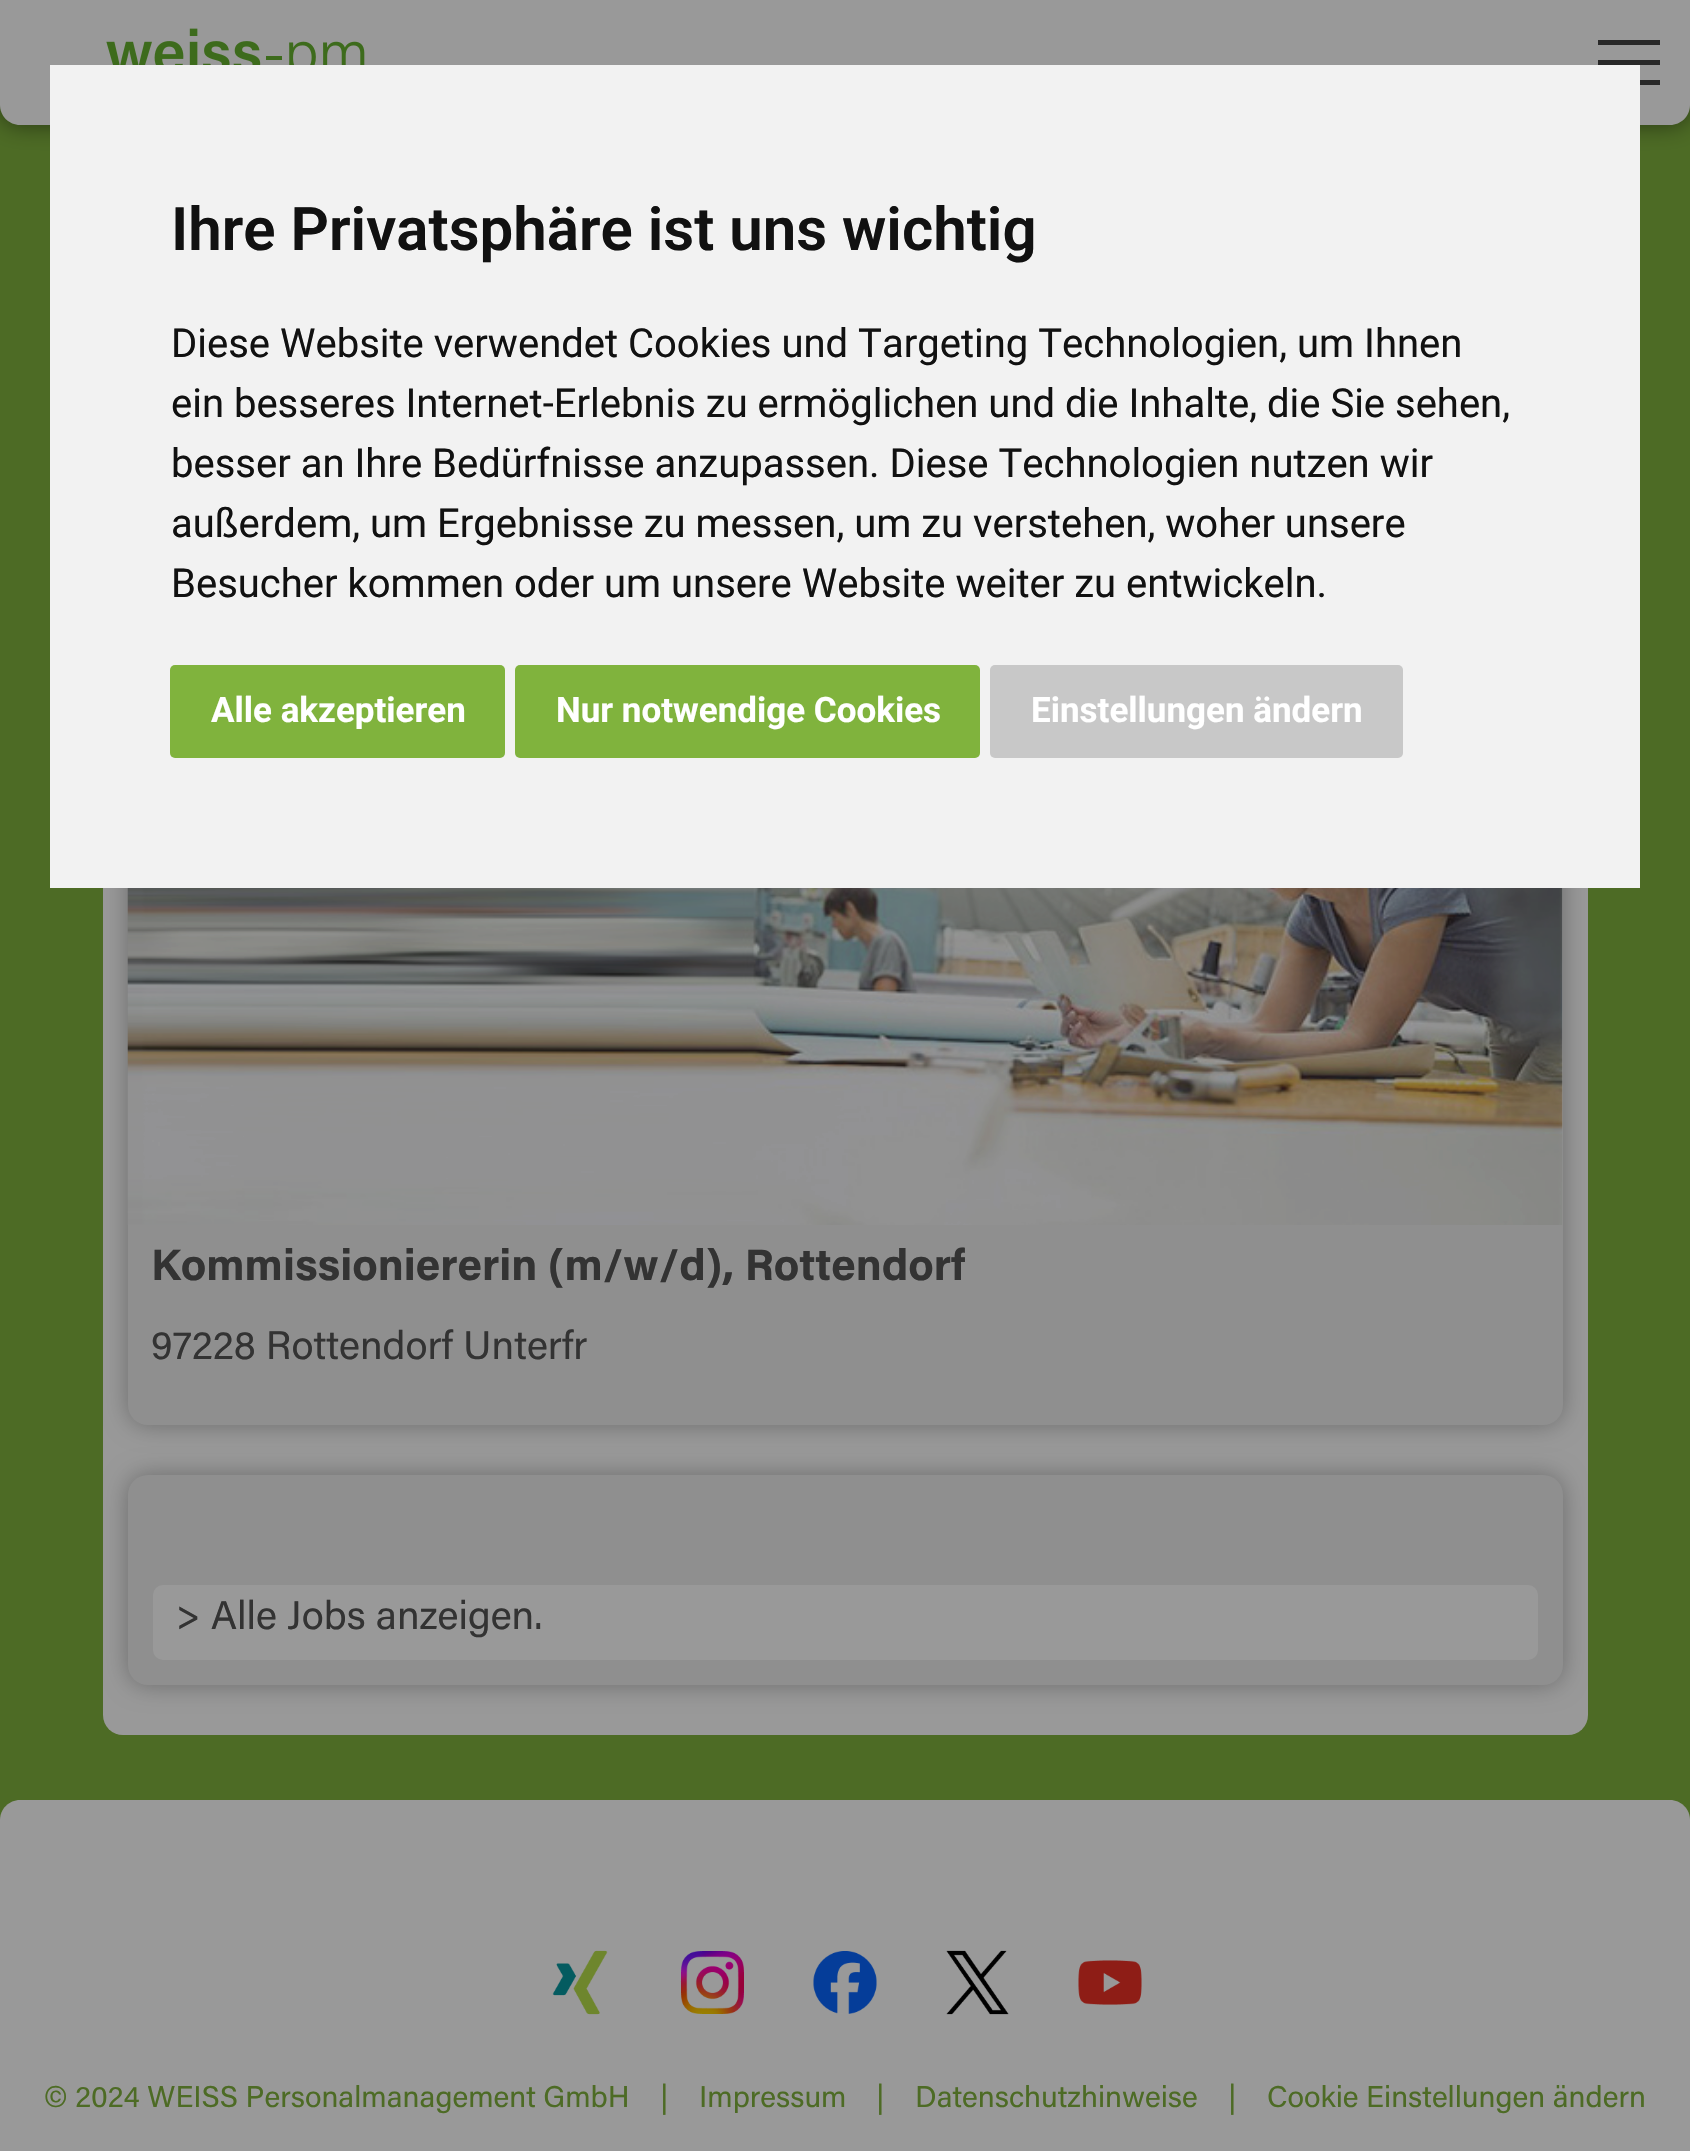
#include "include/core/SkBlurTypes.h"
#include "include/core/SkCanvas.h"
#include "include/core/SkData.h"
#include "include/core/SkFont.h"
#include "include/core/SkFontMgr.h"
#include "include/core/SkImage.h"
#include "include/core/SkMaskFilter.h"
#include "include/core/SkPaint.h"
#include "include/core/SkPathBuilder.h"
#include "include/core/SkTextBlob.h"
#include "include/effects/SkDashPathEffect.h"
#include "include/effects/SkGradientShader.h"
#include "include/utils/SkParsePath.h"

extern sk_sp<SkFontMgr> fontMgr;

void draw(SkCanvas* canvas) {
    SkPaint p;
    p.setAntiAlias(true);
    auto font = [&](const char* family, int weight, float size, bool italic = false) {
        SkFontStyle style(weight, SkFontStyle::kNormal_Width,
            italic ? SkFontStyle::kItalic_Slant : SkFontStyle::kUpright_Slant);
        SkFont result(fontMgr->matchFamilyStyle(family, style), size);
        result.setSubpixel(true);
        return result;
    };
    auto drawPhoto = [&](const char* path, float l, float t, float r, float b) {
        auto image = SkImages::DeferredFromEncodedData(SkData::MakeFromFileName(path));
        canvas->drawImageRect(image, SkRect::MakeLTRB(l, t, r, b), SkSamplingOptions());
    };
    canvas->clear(0xFF4D6B25);
    p.setColor(0x80000000);
    p.setMaskFilter(SkMaskFilter::MakeBlur(kNormal_SkBlurStyle, 12.5f));
    canvas->drawRoundRect(SkRect::MakeLTRB(0, 0, 1690, 125), 20, 20, p);
    p.setMaskFilter(nullptr);
    p.setColor(0xFF999999);
    canvas->drawPath(SkPathBuilder().moveTo(0, 0).lineTo(1690, 0).lineTo(1690, 105).cubicTo(1690, 116, 1681, 125, 1670, 125).lineTo(20, 125).cubicTo(9, 125, 0, 116, 0, 105).close().detach(), p);
    canvas->drawRoundRect(SkRect::MakeLTRB(103, 245, 1588, 1735), 20, 20, p);
    p.setColor(0x4D000000);
    p.setMaskFilter(SkMaskFilter::MakeBlur(kNormal_SkBlurStyle, 12.5f));
    canvas->drawRoundRect(SkRect::MakeLTRB(128, 698, 1563, 1425), 20, 20, p);
    p.setMaskFilter(nullptr);
    p.setColor(0xFF8F8F8F);
    canvas->drawRoundRect(SkRect::MakeLTRB(128, 698, 1563, 1425), 20, 20, p);
    p.setColor(0xFFF2F2F2);
    canvas->drawRect(SkRect::MakeLTRB(50, 65, 1640, 888), p);
    auto font1 = font("Roboto", 600, 60);
    p.setColor(0xFF111111);
    canvas->drawString("Ihre Privatsphäre ist uns wichtig", 171, 250, font1, p);
    auto font2 = font("Roboto", 400, 40);
    {
        const struct { const char* s; float x, y; } items[] = {
            {"Diese Website verwendet Cookies und Targeting Technologien, um Ihnen", 171, 357},
            {"ein besseres Internet-Erlebnis zu ermöglichen und die Inhalte, die Sie sehen,", 171, 417},
            {"besser an Ihre Bedürfnisse anzupassen. Diese Technologien nutzen wir", 171, 477},
            {"außerdem, um Ergebnisse zu messen, um zu verstehen, woher unsere", 171, 537},
            {"Besucher kommen oder um unsere Website weiter zu entwickeln.", 171, 597},
        };
        for (auto [s, x, y] : items) {
            canvas->drawString(s, x, y, font2, p);
        }
    }
    p.setColor(0xFF80B33D);
    canvas->drawRoundRect(SkRect::MakeLTRB(170, 665, 505, 758), 5, 5, p);
    auto font3 = font("Roboto", 700, 35);
    p.setColor(0xFFFFFFFF);
    canvas->drawString("Alle akzeptieren", 211, 722, font3, p);
    p.setColor(0xFF80B33D);
    canvas->drawRoundRect(SkRect::MakeLTRB(515, 665, 980, 758), 5, 5, p);
    p.setColor(0xFFFFFFFF);
    canvas->drawString("Nur notwendige Cookies", 556, 722, font3, p);
    p.setColor(0xFFC8C8C8);
    canvas->drawRoundRect(SkRect::MakeLTRB(990, 665, 1403, 758), 5, 5, p);
    p.setColor(0xFFFFFFFF);
    canvas->drawString("Einstellungen ändern", 1031, 722, font3, p);
    drawPhoto("media/1.png", 106, 28, 365, 65);
    {
        const struct { float l, t, r, b; SkColor color; } items[] = {
            {1598, 40, 1660, 45, 0xFF292929},
            {1598, 60, 1660, 65, 0xFF292929},
            {1640, 80, 1660, 85, 0xFF292929},
        };
        for (auto [l, t, r, b, color] : items) {
            p.setColor(color);
            canvas->drawRect(SkRect::MakeLTRB(l, t, r, b), p);
        }
    }
    drawPhoto("media/2.png", 127, 888, 1563, 1225);
    auto font4 = font("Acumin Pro", 700, 44);
    p.setColor(0xFF333333);
    canvas->drawString("Kommissioniererin (m/w/d), Rottendorf", 151, 1280, font4, p);
    auto font5 = font("Acumin Pro", 400, 40);
    canvas->drawString("97228 Rottendorf Unterfr", 151, 1359, font5, p);
    p.setColor(0x4D000000);
    p.setMaskFilter(SkMaskFilter::MakeBlur(kNormal_SkBlurStyle, 12.5f));
    canvas->drawRoundRect(SkRect::MakeLTRB(128, 1475, 1563, 1685), 20, 20, p);
    p.setMaskFilter(nullptr);
    p.setColor(0xFF8F8F8F);
    canvas->drawRoundRect(SkRect::MakeLTRB(128, 1475, 1563, 1685), 20, 20, p);
    p.setColor(0xFF999999);
    canvas->drawRoundRect(SkRect::MakeLTRB(153, 1585, 1538, 1660), 10, 10, p);
    p.setColor(0xFF333333);
    canvas->drawString("> Alle Jobs anzeigen.", 176, 1629, font5, p);
    p.setColor(0xFF999999);
    canvas->drawPath(SkPathBuilder().moveTo(20, 1800).lineTo(1670, 1800).cubicTo(1681, 1800, 1690, 1809, 1690, 1820).lineTo(1690, 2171).lineTo(0, 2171).lineTo(0, 1820).cubicTo(0, 1809, 9, 1800, 20, 1800).close().detach(), p);
    drawPhoto("media/3.png", 552, 1950, 608, 2015);
    drawPhoto("media/4.png", 680, 1951, 744, 2014);
    drawPhoto("media/5.png", 813, 1951, 877, 2014);
    drawPhoto("media/6.png", 946, 1950, 1009, 2015);
    drawPhoto("media/7.png", 1078, 1960, 1142, 2005);
    auto font6 = font("Acumin Pro", 400, 30);
    p.setColor(0xFF4D6B25);
    {
        const struct { const char* s; float x, y; } items[] = {
            {"© 2024 WEISS Personalmanagement GmbH    |", 44, 2107},
            {"Impressum", 699, 2107},
            {"|", 876, 2107},
            {"Datenschutzhinweise", 915, 2107},
            {"|", 1228, 2107},
            {"Cookie Einstellungen ändern", 1267, 2107},
        };
        for (auto [s, x, y] : items) {
            canvas->drawString(s, x, y, font6, p);
        }
    }
}
